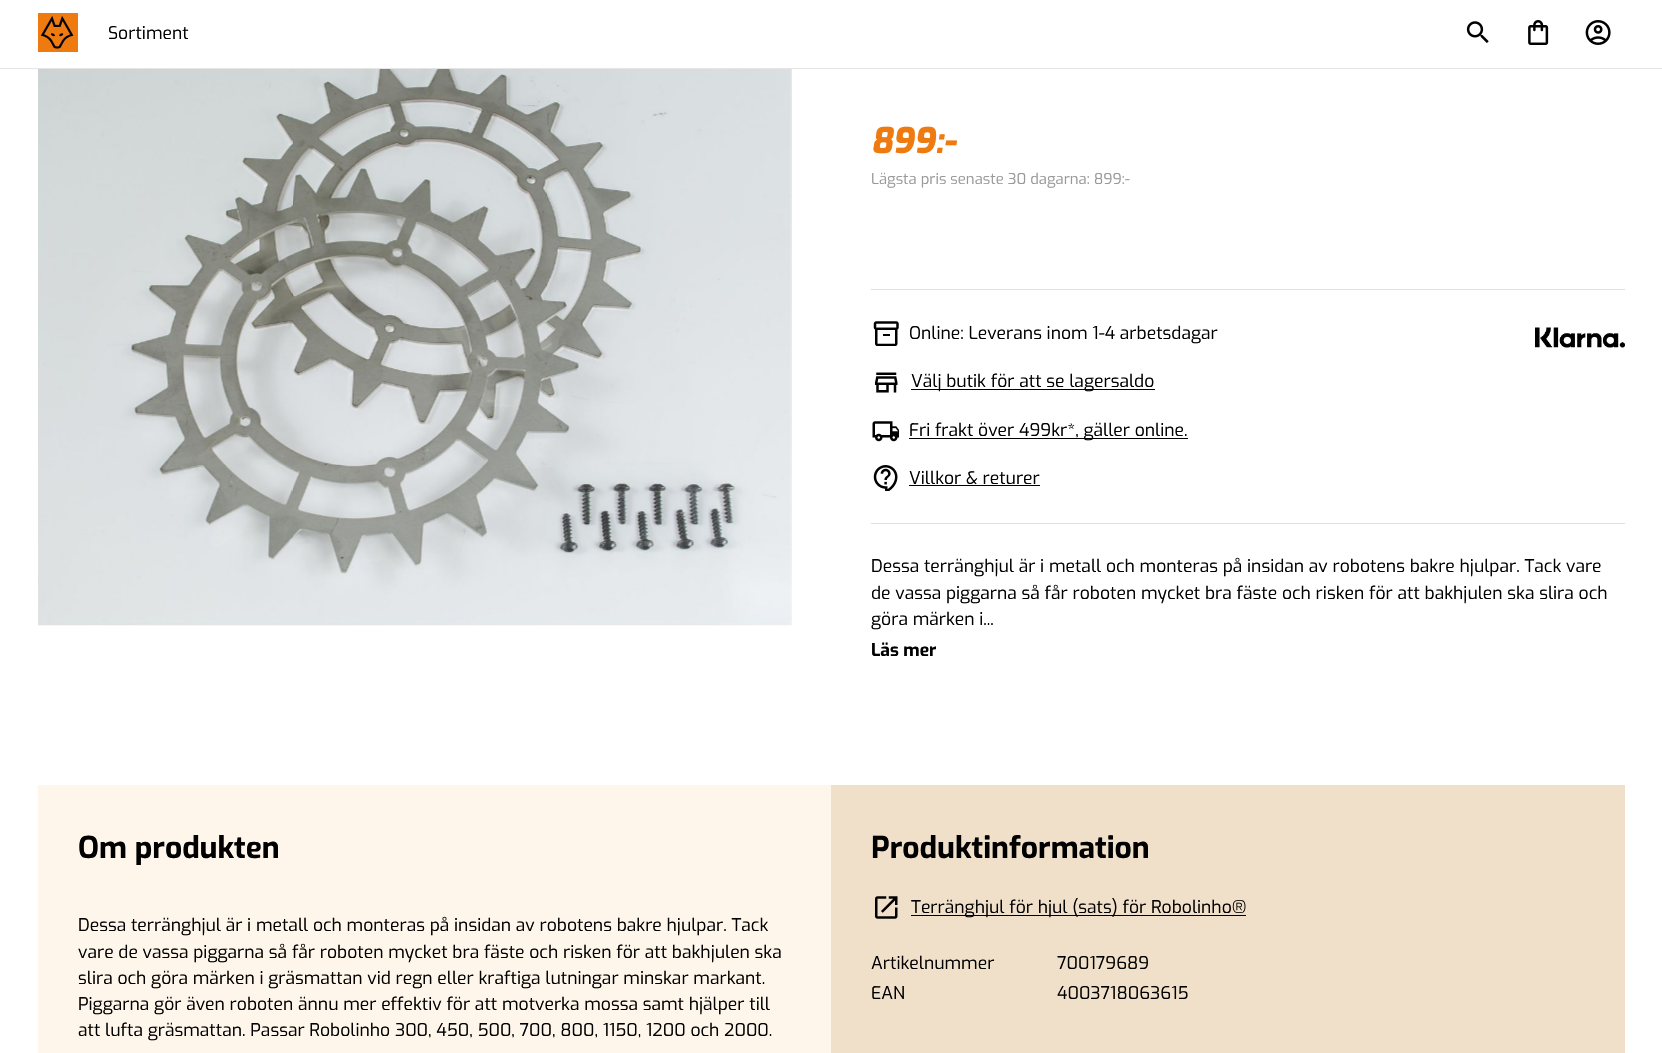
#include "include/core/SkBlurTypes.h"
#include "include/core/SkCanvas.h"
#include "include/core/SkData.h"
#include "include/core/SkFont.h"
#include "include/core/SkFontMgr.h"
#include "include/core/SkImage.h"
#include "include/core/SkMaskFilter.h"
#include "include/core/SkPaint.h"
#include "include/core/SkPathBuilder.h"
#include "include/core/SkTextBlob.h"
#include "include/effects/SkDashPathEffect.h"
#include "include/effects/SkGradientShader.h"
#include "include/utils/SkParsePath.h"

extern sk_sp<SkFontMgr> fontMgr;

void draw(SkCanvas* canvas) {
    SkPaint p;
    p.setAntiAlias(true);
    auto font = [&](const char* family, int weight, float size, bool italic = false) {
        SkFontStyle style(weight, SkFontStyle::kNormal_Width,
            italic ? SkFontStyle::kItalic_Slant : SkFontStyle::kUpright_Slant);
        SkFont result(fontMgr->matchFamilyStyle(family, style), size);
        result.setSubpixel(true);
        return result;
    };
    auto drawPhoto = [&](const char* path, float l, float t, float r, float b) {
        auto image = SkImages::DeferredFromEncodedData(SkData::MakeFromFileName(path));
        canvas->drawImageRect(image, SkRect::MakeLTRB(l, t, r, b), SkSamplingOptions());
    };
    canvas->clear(0xFFFFFFFF);
    p.setColor(0xFFE5E5E5);
    canvas->drawRect(SkRect::MakeLTRB(0, 68, 1662, 69), p);
    drawPhoto("media/1.png", 38, 13, 78, 52);
    auto font1 = font("Exo", 400, 17.5f);
    p.setColor(0xFF000000);
    canvas->drawString("Sortiment", 108, 39, font1, p);
    drawPhoto("media/2.png", 1466, 21, 1489, 43);
    drawPhoto("media/3.png", 1528, 20, 1549, 45);
    drawPhoto("media/4.png", 1585, 20, 1611, 45);
    drawPhoto("media/5.png", 38, 69, 792, 626);
    auto font2 = font("Exo", 800, 35, true);
    p.setColor(0xFFEF7B10);
    canvas->drawString("899:-", 871, 153, font2, p);
    auto font3 = font("Exo", 400, 14.9f);
    p.setColor(0xFF999999);
    canvas->drawString("Lägsta pris senaste 30 dagarna: 899:-", 871, 184, font3, p);
    p.setColor(0xFFE0E0E0);
    canvas->drawRect(SkRect::MakeLTRB(871, 289, 1625, 290), p);
    canvas->drawRect(SkRect::MakeLTRB(871, 523, 1625, 524), p);
    drawPhoto("media/6.png", 873, 321, 899, 346);
    p.setColor(0xFF000000);
    canvas->drawString("Online: Leverans inom 1-4 arbetsdagar", 909, 339, font1, p);
    drawPhoto("media/7.png", 875, 372, 898, 393);
    canvas->drawRect(SkRect::MakeLTRB(911, 389, 1155, 390), p);
    canvas->drawString("Välj butik för att se lagersaldo", 911, 387, font1, p);
    drawPhoto("media/8.png", 872, 421, 899, 442);
    canvas->drawRect(SkRect::MakeLTRB(909, 438, 1188, 439), p);
    canvas->drawString("Fri frakt över 499kr*, gäller online.", 909, 436, font1, p);
    drawPhoto("media/9.png", 873, 465, 898, 491);
    canvas->drawString("Villkor & returer", 909, 484, font1, p);
    canvas->drawRect(SkRect::MakeLTRB(909, 485, 1040, 486), p);
    drawPhoto("media/10.png", 1535, 327, 1625, 348);
    {
        const struct { const char* s; float x, y; } items[] = {
            {"Dessa terränghjul är i metall och monteras på insidan av robotens bakre hjulpar. Tack vare", 871, 572},
            {"de vassa piggarna så får roboten mycket bra fäste och risken för att bakhjulen ska slira och", 871, 599},
            {"göra märken i...", 871, 625},
        };
        for (auto [s, x, y] : items) {
            canvas->drawString(s, x, y, font1, p);
        }
    }
    auto font4 = font("Exo", 700, 17.5f);
    canvas->drawString("Läs mer", 871, 656, font4, p);
    p.setColor(0xFFFEF6EB);
    canvas->drawRect(SkRect::MakeLTRB(38, 785, 831, 1053), p);
    auto font5 = font("Exo", 700, 30);
    p.setColor(0xFF000000);
    canvas->drawString("Om produkten", 78, 858, font5, p);
    {
        const struct { const char* s; float x, y; } items[] = {
            {"Dessa terränghjul är i metall och monteras på insidan av robotens bakre hjulpar. Tack", 78, 931},
            {"vare de vassa piggarna så får roboten mycket bra fäste och risken för att bakhjulen ska", 78, 958},
            {"slira och göra märken i gräsmattan vid regn eller kraftiga lutningar minskar markant.", 78, 984},
            {"Piggarna gör även roboten ännu mer effektiv för att motverka mossa samt hjälper till", 78, 1010},
            {"att lufta gräsmattan. Passar Robolinho 300, 450, 500, 700, 800, 1150, 1200 och 2000.", 78, 1036},
        };
        for (auto [s, x, y] : items) {
            canvas->drawString(s, x, y, font1, p);
        }
    }
    p.setColor(0xFFF1E0C9);
    canvas->drawRect(SkRect::MakeLTRB(831, 785, 1625, 1053), p);
    p.setColor(0xFF000000);
    canvas->drawString("Produktinformation", 871, 858, font5, p);
    drawPhoto("media/11.png", 875, 896, 898, 919);
    canvas->drawRect(SkRect::MakeLTRB(911, 915, 1246, 916), p);
    {
        const struct { const char* s; float x, y; } items[] = {
            {"Terränghjul för hjul (sats) för Robolinho®", 911, 913},
            {"Artikelnummer", 871, 969},
            {"700179689", 1057, 969},
            {"EAN", 871, 999},
            {"4003718063615", 1057, 999},
        };
        for (auto [s, x, y] : items) {
            canvas->drawString(s, x, y, font1, p);
        }
    }
}
